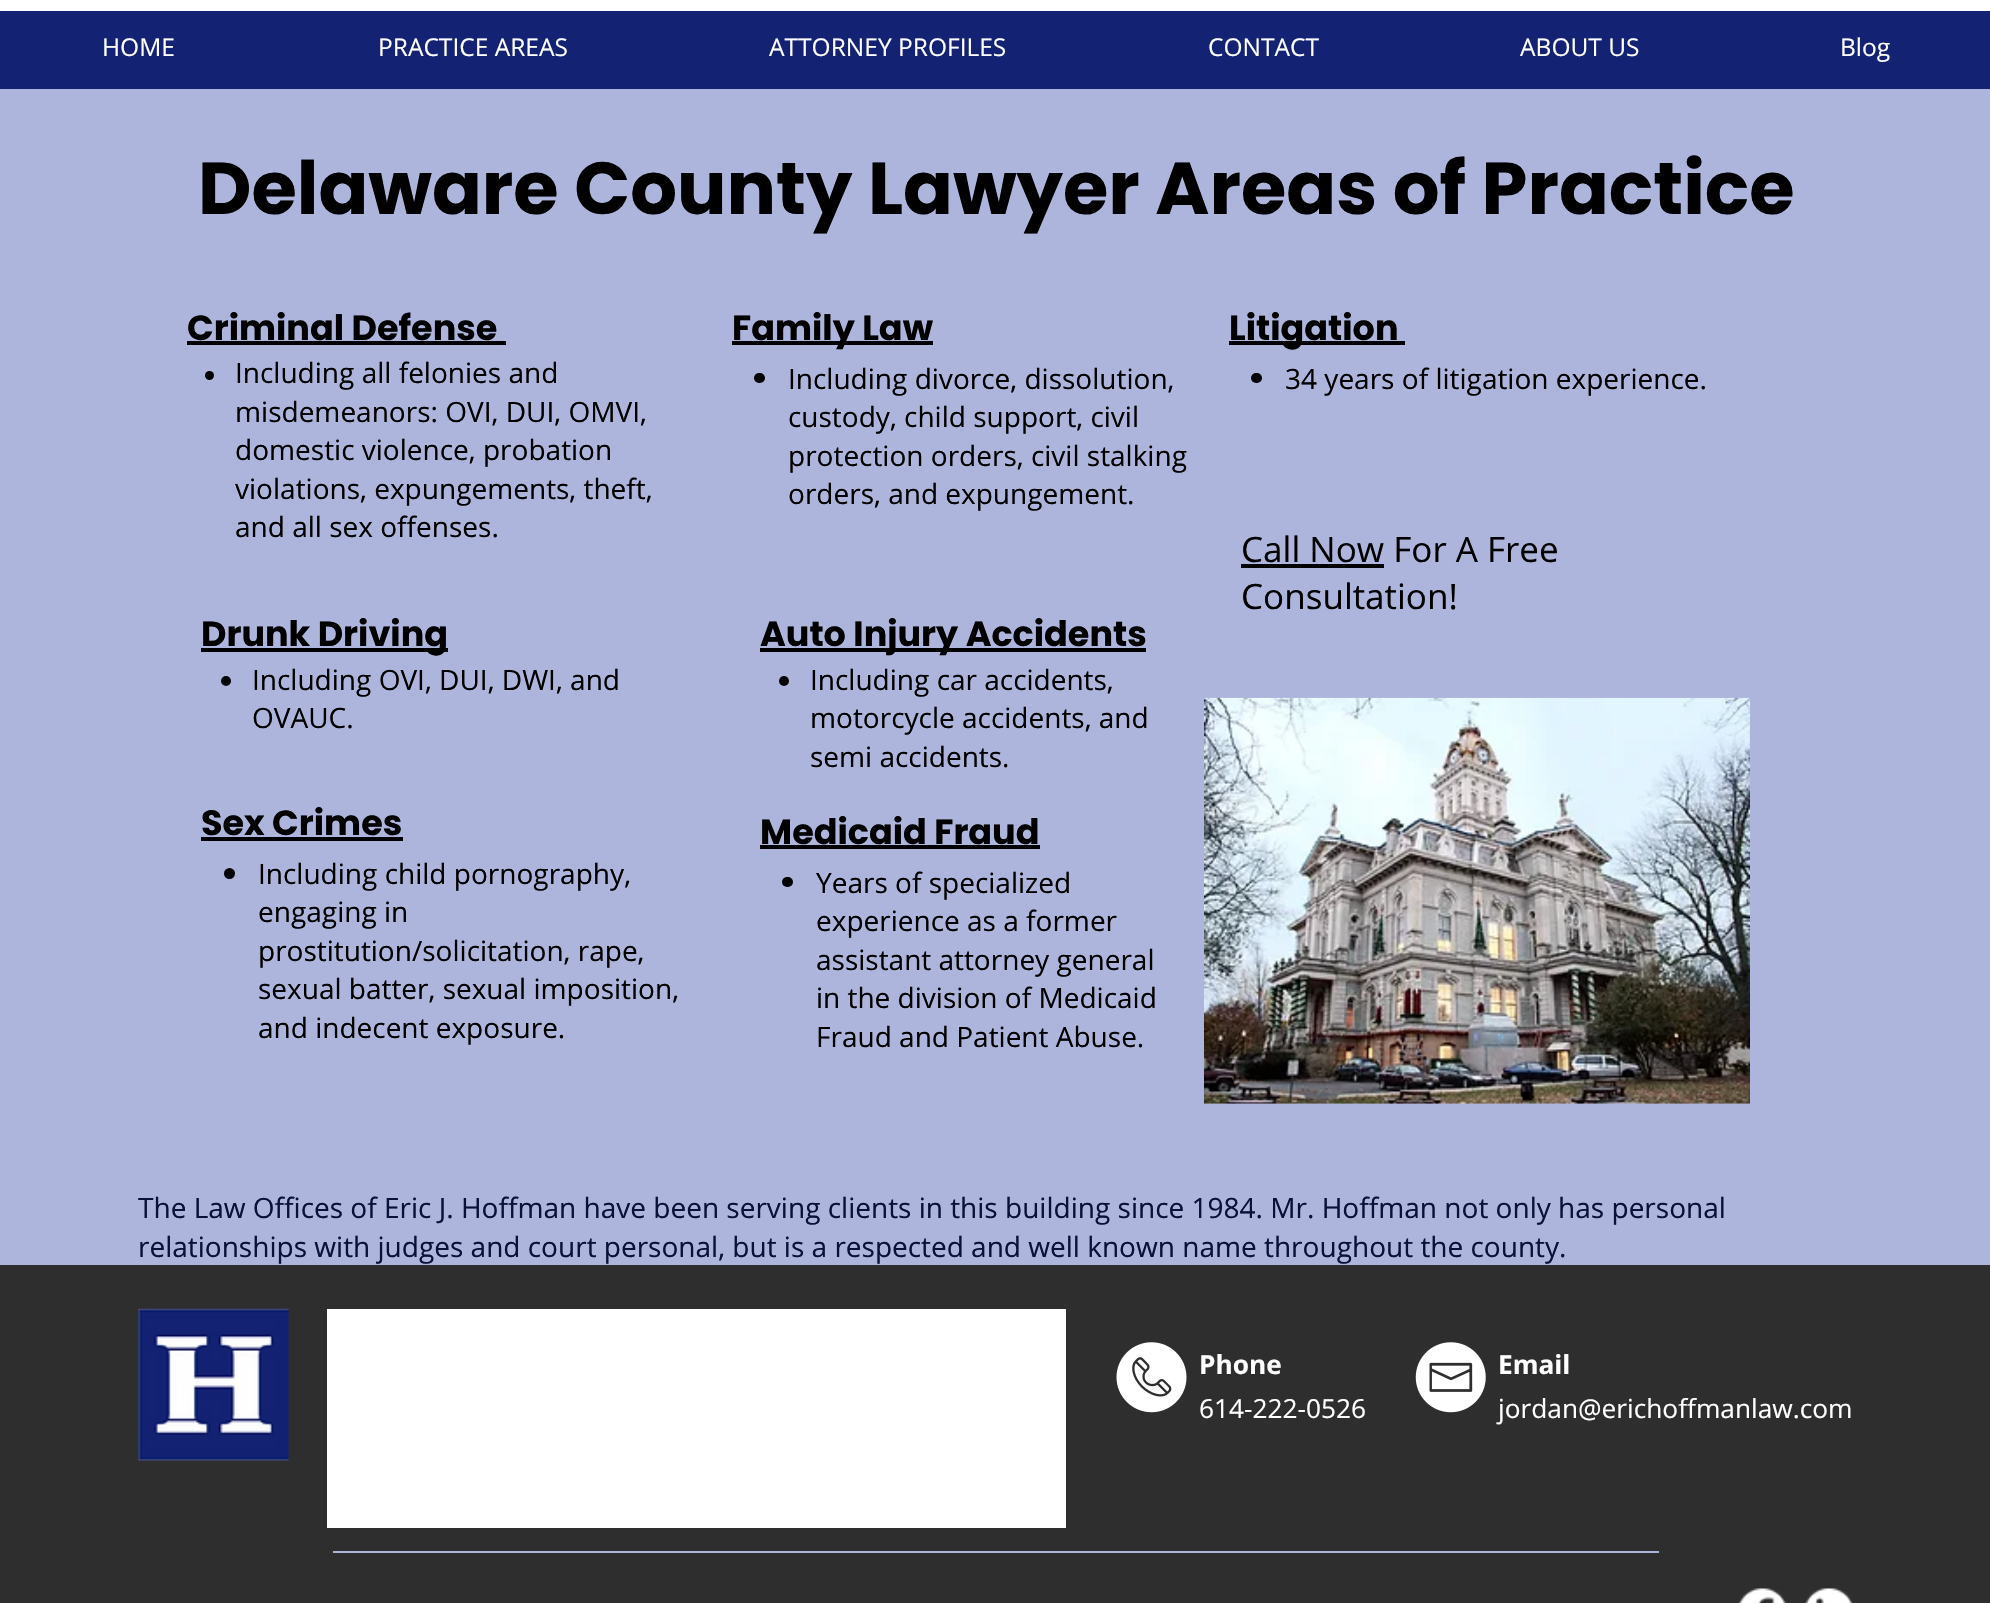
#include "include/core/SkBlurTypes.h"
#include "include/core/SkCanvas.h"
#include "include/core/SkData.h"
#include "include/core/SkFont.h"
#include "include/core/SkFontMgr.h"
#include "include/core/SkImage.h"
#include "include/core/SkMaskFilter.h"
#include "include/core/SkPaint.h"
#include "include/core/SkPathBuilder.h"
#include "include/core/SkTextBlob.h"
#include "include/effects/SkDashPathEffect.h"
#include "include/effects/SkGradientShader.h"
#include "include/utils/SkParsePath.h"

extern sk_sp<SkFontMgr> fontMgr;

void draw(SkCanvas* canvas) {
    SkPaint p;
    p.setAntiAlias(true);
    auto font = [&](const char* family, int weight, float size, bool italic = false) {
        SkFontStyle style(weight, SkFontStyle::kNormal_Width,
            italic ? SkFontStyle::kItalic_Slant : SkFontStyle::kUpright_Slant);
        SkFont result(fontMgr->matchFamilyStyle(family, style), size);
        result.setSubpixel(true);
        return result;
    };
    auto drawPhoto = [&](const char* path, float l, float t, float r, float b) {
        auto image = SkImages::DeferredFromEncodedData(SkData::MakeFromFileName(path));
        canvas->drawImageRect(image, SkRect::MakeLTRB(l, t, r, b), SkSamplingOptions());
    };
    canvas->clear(0xFFAEB5DC);
    p.setColor(0xFFFFFFFF);
    canvas->drawRect(SkRect::MakeLTRB(0, 0, 1990, 11), p);
    p.setColor(0xFF132273);
    canvas->drawRect(SkRect::MakeLTRB(0, 11, 1990, 89), p);
    auto font1 = font("Open Sans", 400, 24.5f);
    p.setColor(0xFFFFFFFF);
    {
        const struct { const char* s; float x, y; } items[] = {
            {"HOME", 102, 56},
            {"PRACTICE AREAS", 378, 56},
            {"ATTORNEY PROFILES", 769, 56},
            {"CONTACT", 1208, 56},
            {"ABOUT US", 1520, 56},
            {"Blog", 1840, 56},
        };
        for (auto [s, x, y] : items) {
            canvas->drawString(s, x, y, font1, p);
        }
    }
    auto font2 = font("Poppins", 700, 73.5f);
    p.setColor(0xFF000000);
    canvas->drawString("Delaware County Lawyer Areas of Practice", 198, 214, font2, p);
    auto font3 = font("Poppins", 700, 35);
    canvas->drawString("Criminal Defense", 187, 340, font3, p);
    canvas->drawRect(SkRect::MakeLTRB(187, 341, 506, 345), p);
    canvas->drawCircle(209.5f, 375.5f, 4.5f, p);
    auto font4 = font("Open Sans", 400, 28);
    {
        const struct { const char* s; float x, y; } items[] = {
            {"Including all felonies and", 235, 383},
            {"misdemeanors: OVI, DUI, OMVI,", 235, 422},
            {"domestic violence, probation", 235, 460},
            {"violations, expungements, theft,", 235, 499},
            {"and all sex offenses.", 235, 537},
        };
        for (auto [s, x, y] : items) {
            canvas->drawString(s, x, y, font4, p);
        }
    }
    canvas->drawRect(SkRect::MakeLTRB(732, 341, 933, 345), p);
    canvas->drawString("Family Law", 732, 340, font3, p);
    canvas->drawRoundRect(SkRect::MakeLTRB(754, 373, 765, 383), 5, 5, p);
    {
        const struct { const char* s; float x, y; } items[] = {
            {"Including divorce, dissolution,", 788, 389},
            {"custody, child support, civil", 788, 427},
            {"protection orders, civil stalking", 788, 466},
            {"orders, and expungement.", 788, 504},
        };
        for (auto [s, x, y] : items) {
            canvas->drawString(s, x, y, font4, p);
        }
    }
    canvas->drawRect(SkRect::MakeLTRB(1229, 341, 1405, 345), p);
    canvas->drawString("Litigation", 1229, 340, font3, p);
    canvas->drawRoundRect(SkRect::MakeLTRB(1251, 373, 1262, 383), 5, 5, p);
    canvas->drawString("34 years of litigation experience.", 1285, 389, font4, p);
    auto font5 = font("Open Sans", 400, 35);
    canvas->drawString("Call Now For A Free", 1241, 562, font5, p);
    canvas->drawRect(SkRect::MakeLTRB(1241, 564, 1384, 568), p);
    canvas->drawString("Consultation!", 1241, 609, font5, p);
    canvas->drawRect(SkRect::MakeLTRB(201, 648, 448, 652), p);
    canvas->drawString("Drunk Driving", 201, 646, font3, p);
    canvas->drawCircle(226, 681, 5, p);
    canvas->drawString("Including OVI, DUI, DWI, and", 252, 690, font4, p);
    canvas->drawString("OVAUC.", 252, 728, font4, p);
    canvas->drawRect(SkRect::MakeLTRB(760, 648, 1146, 652), p);
    canvas->drawString("Auto Injury Accidents", 760, 646, font3, p);
    canvas->drawCircle(784, 681, 5, p);
    {
        const struct { const char* s; float x, y; } items[] = {
            {"Including car accidents,", 810, 690},
            {"motorcycle accidents, and", 810, 728},
            {"semi accidents.", 810, 767},
        };
        for (auto [s, x, y] : items) {
            canvas->drawString(s, x, y, font4, p);
        }
    }
    drawPhoto("media/1.png", 1204, 697, 1750, 1104);
    canvas->drawString("Sex Crimes", 201, 835, font3, p);
    canvas->drawRect(SkRect::MakeLTRB(201, 837, 403, 841), p);
    canvas->drawCircle(229.5f, 873.5f, 5.5f, p);
    {
        const struct { const char* s; float x, y; } items[] = {
            {"Including child pornography,", 258, 884},
            {"engaging in", 258, 922},
            {"prostitution/solicitation, rape,", 258, 961},
            {"sexual batter, sexual imposition,", 258, 999},
            {"and indecent exposure.", 258, 1038},
        };
        for (auto [s, x, y] : items) {
            canvas->drawString(s, x, y, font4, p);
        }
    }
    canvas->drawString("Medicaid Fraud", 760, 844, font3, p);
    canvas->drawRect(SkRect::MakeLTRB(760, 845, 1040, 849), p);
    canvas->drawRoundRect(SkRect::MakeLTRB(782, 877, 793, 887), 5, 5, p);
    {
        const struct { const char* s; float x, y; } items[] = {
            {"Years of specialized", 816, 893},
            {"experience as a former", 816, 931},
            {"assistant attorney general", 816, 970},
            {"in the division of Medicaid", 816, 1008},
            {"Fraud and Patient Abuse.", 816, 1047},
        };
        for (auto [s, x, y] : items) {
            canvas->drawString(s, x, y, font4, p);
        }
    }
    p.setColor(0xFF09113A);
    canvas->drawString("The Law Offices of Eric J. Hoffman have been serving clients in this building since 1984. Mr. Hoffman not only has personal", 138, 1218, font4, p);
    canvas->drawString("relationships with judges and court personal, but is a respected and well known name throughout the county.", 138, 1257, font4, p);
    p.setColor(0xFF2F2E2E);
    canvas->drawRect(SkRect::MakeLTRB(0, 1265, 1990, 1603), p);
    drawPhoto("media/2.png", 138, 1308, 289, 1461);
    p.setColor(0xFFFFFFFF);
    canvas->drawRect(SkRect::MakeLTRB(327, 1309, 1066, 1528), p);
    drawPhoto("media/3.png", 1116, 1342, 1187, 1413);
    auto font6 = font("Open Sans", 700, 26.25f);
    canvas->drawString("Phone", 1199, 1374, font6, p);
    auto font7 = font("Open Sans", 400, 26.25f);
    canvas->drawString("614-222-0526", 1199, 1418, font7, p);
    drawPhoto("media/4.png", 1415, 1342, 1486, 1413);
    canvas->drawString("Email", 1498, 1374, font6, p);
    canvas->drawString("jordan@erichoffmanlaw.com", 1498, 1418, font7, p);
    p.setColor(0xFFAEB5DC);
    canvas->drawRect(SkRect::MakeLTRB(333, 1551, 1659, 1553), p);
    drawPhoto("media/5.png", 1739, 1588, 1786, 1603);
    drawPhoto("media/6.png", 1805, 1588, 1852, 1603);
}
